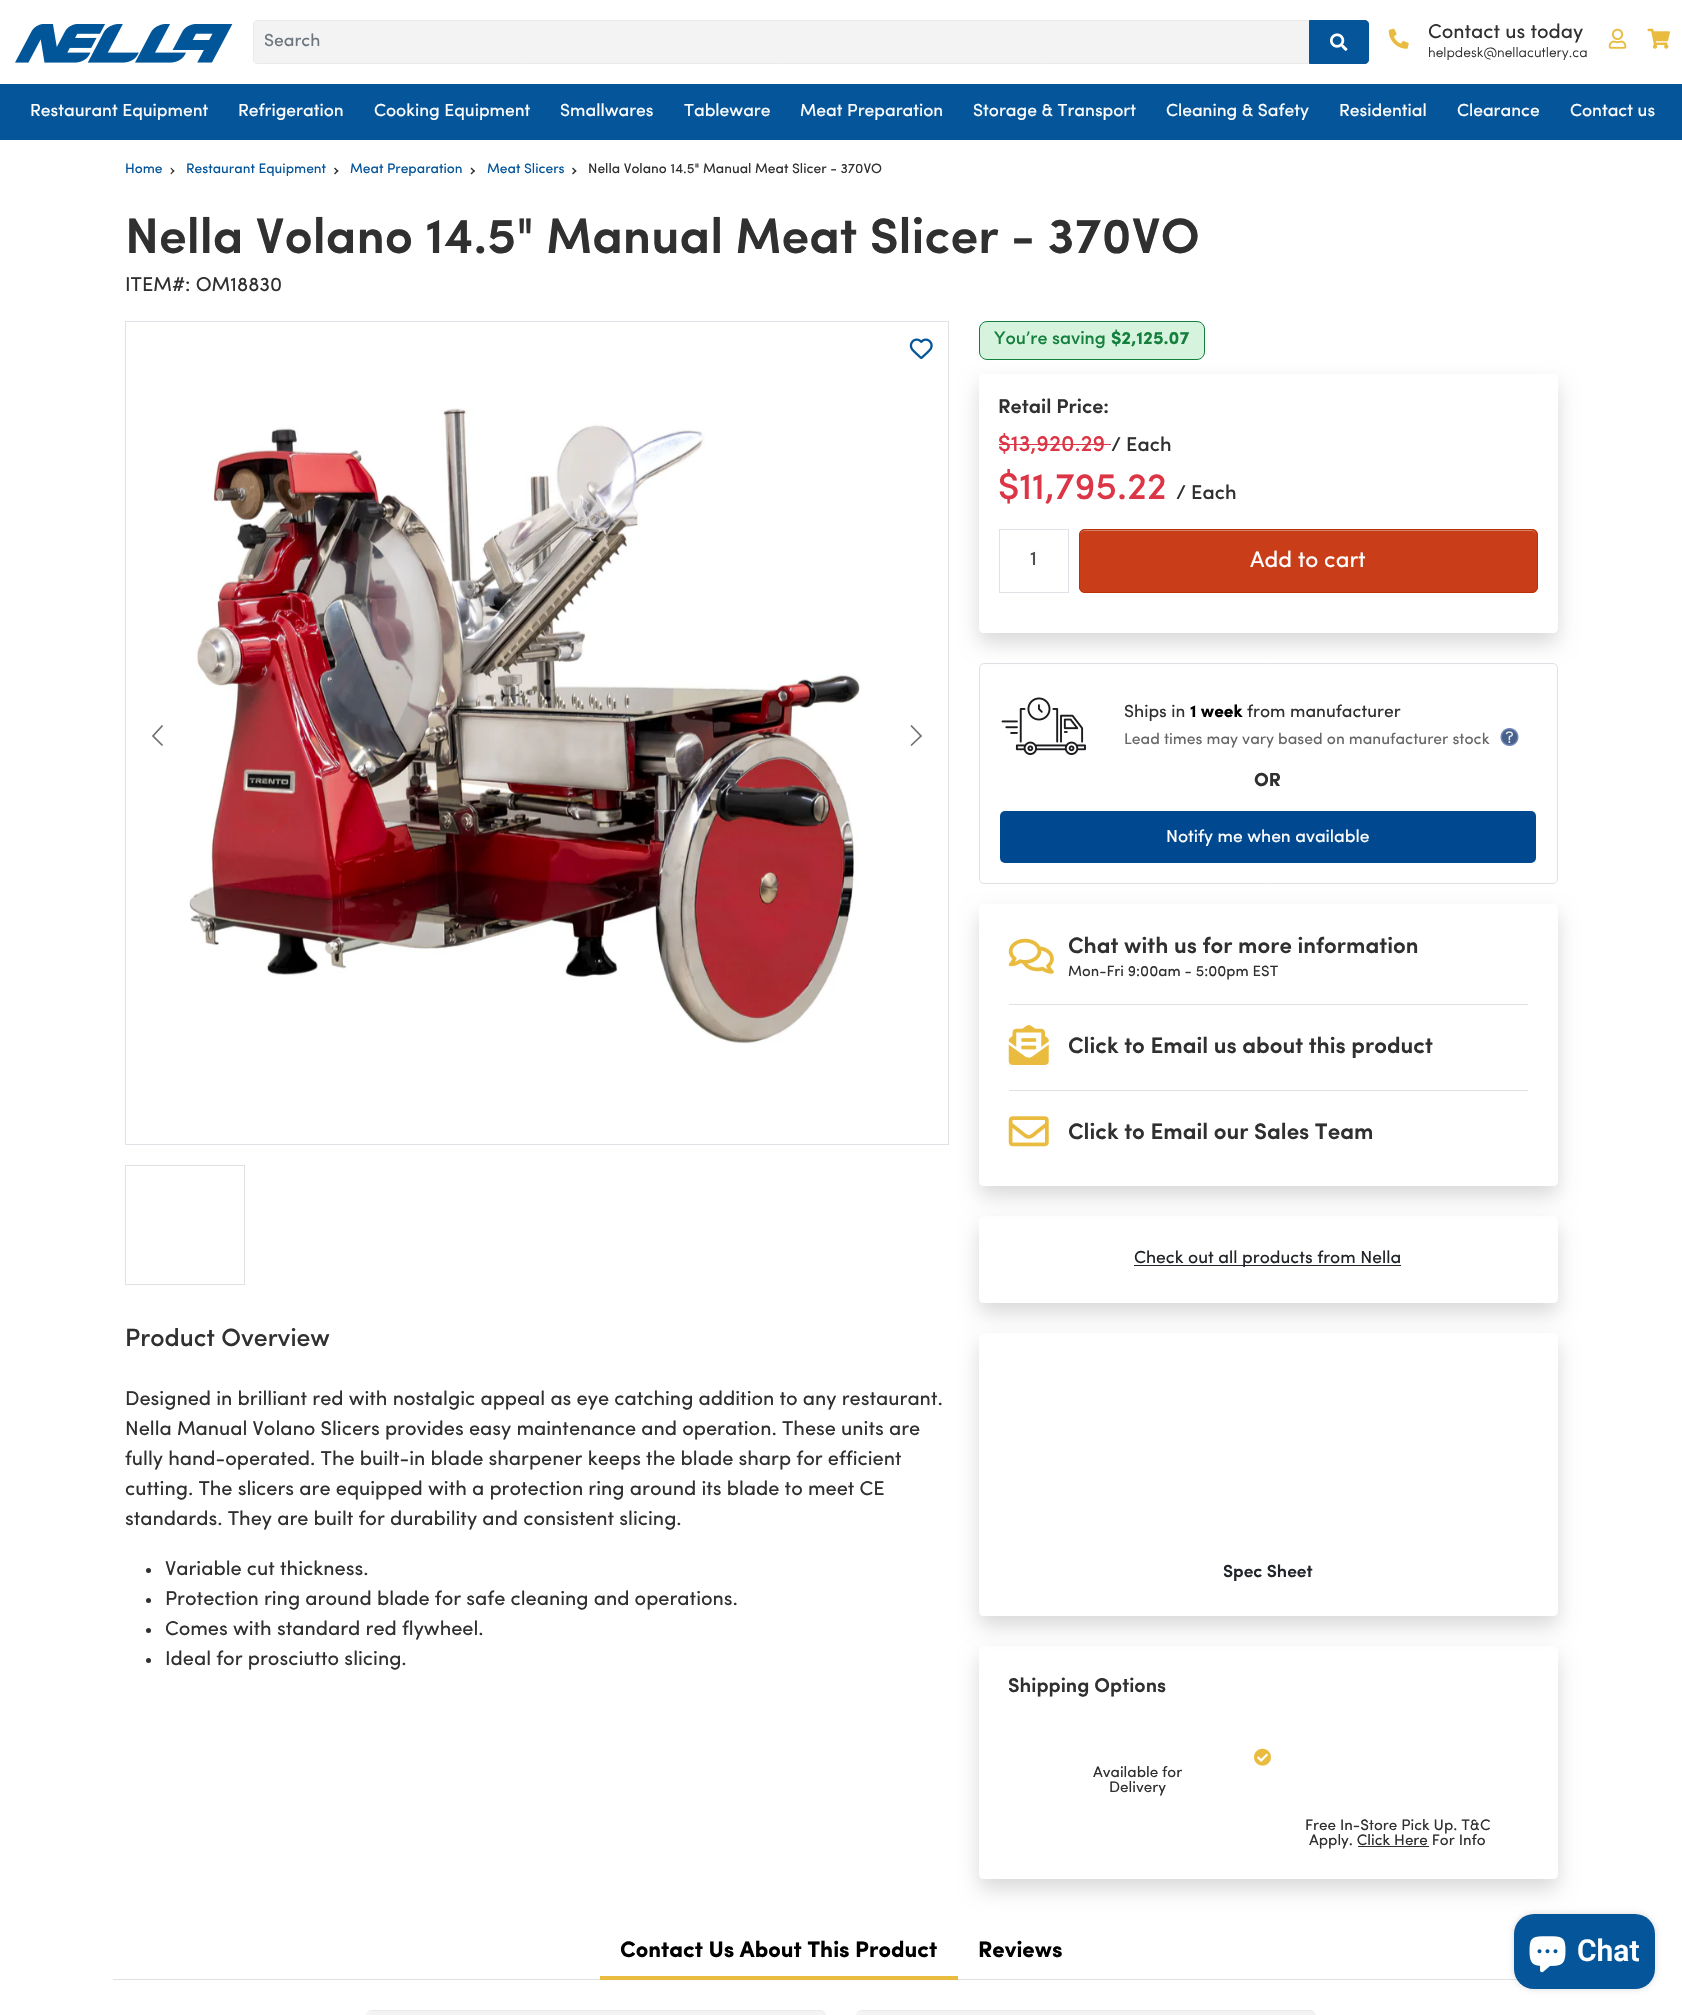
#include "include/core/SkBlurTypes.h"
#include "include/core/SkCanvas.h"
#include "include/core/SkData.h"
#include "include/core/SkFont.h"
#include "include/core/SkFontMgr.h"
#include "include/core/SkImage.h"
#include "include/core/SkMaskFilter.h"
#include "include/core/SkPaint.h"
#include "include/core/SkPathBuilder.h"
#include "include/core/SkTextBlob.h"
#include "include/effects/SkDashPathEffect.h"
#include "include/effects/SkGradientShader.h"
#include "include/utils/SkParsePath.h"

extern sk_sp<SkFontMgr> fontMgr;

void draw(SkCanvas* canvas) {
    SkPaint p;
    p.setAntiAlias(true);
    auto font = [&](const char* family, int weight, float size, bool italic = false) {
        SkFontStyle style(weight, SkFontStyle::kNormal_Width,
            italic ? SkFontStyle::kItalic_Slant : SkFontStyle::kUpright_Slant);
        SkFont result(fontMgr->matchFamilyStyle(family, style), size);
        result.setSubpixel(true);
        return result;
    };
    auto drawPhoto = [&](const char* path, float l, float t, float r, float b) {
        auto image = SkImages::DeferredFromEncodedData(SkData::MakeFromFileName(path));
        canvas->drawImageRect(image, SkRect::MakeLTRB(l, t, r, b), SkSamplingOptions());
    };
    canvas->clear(0xFFFFFFFF);
    drawPhoto("media/1.png", 15, 24, 233, 63);
    p.setColor(0xFFF3F3F3);
    canvas->drawPath(SkPathBuilder().moveTo(256.5f, 21).lineTo(1309, 21).lineTo(1309, 63).lineTo(256.5f, 63).cubicTo(255, 63, 254, 62, 254, 60.5f).lineTo(254, 23.5f).cubicTo(254, 22, 255, 21, 256.5f, 21).close().detach(), p);
    p.setStyle(SkPaint::kStroke_Style);
    p.setStrokeWidth(1);
    p.setColor(0xFFEAEAEA);
    canvas->drawPath(SkPathBuilder().moveTo(257, 20.5f).lineTo(1309.5f, 20.5f).lineTo(1309.5f, 63.5f).lineTo(257, 63.5f).cubicTo(255, 63.5f, 253.5f, 62, 253.5f, 60).lineTo(253.5f, 24).cubicTo(253.5f, 22, 255, 20.5f, 257, 20.5f).close().detach(), p);
    auto font1 = font("Sofia", 400, 17.5f);
    p.setStyle(SkPaint::kFill_Style);
    p.setColor(0xFF6C757D);
    canvas->drawString("Search", 264, 46, font1, p);
    p.setColor(0xFF05559A);
    canvas->drawPath(SkPathBuilder().moveTo(1309.5f, 20.5f).lineTo(1365, 20.5f).cubicTo(1367, 20.5f, 1368.5f, 22, 1368.5f, 24).lineTo(1368.5f, 60).cubicTo(1368.5f, 62, 1367, 63.5f, 1365, 63.5f).lineTo(1309.5f, 63.5f).close().detach(), p);
    p.setStyle(SkPaint::kStroke_Style);
    canvas->drawPath(SkPathBuilder().moveTo(1309.5f, 20.5f).lineTo(1365, 20.5f).cubicTo(1367, 20.5f, 1368.5f, 22, 1368.5f, 24).lineTo(1368.5f, 60).cubicTo(1368.5f, 62, 1367, 63.5f, 1365, 63.5f).lineTo(1309.5f, 63.5f).close().detach(), p);
    drawPhoto("media/2.png", 1330, 33, 1348, 51);
    drawPhoto("media/3.png", 1388, 28, 1409, 49);
    auto font2 = font("Sofia", 400, 20);
    p.setStyle(SkPaint::kFill_Style);
    p.setColor(0xFF303030);
    canvas->drawString("Contact us today", 1428, 38, font2, p);
    auto font3 = font("Sofia", 300, 13.75f);
    canvas->drawString("helpdesk@nellacutlery.ca", 1428, 57, font3, p);
    drawPhoto("media/4.png", 1608, 28, 1627, 49);
    drawPhoto("media/5.png", 1647, 28, 1670, 49);
    p.setColor(0xFF05559A);
    canvas->drawRect(SkRect::MakeLTRB(0, 84, 1682, 140), p);
    p.setColor(0xFFFFFFFF);
    {
        const struct { const char* s; float x, y; } items[] = {
            {"Restaurant Equipment", 30, 116},
            {"Refrigeration", 238, 116},
            {"Cooking Equipment", 374, 116},
            {"Smallwares", 560, 116},
            {"Tableware", 684, 116},
            {"Meat Preparation", 800, 116},
            {"Storage & Transport", 973, 116},
            {"Cleaning & Safety", 1166, 116},
            {"Residential", 1339, 116},
            {"Clearance", 1457, 116},
            {"Contact us", 1570, 116},
        };
        for (auto [s, x, y] : items) {
            canvas->drawString(s, x, y, font1, p);
        }
    }
    auto font4 = font("Sofia", 400, 13.75f);
    p.setColor(0xFF05559A);
    canvas->drawString("Home", 125, 173, font4, p);
    p.setColor(0xFF303030);
    canvas->drawPath(SkPathBuilder().moveTo(171, 167.5f).lineTo(174.5f, 171).lineTo(173.5f, 172).lineTo(170.5f, 168.5f).close().detach(), p);
    canvas->drawPath(SkPathBuilder().moveTo(173.5f, 170).lineTo(174.5f, 171).lineTo(171, 174.5f).lineTo(170.5f, 173.5f).close().detach(), p);
    p.setColor(0xFF05559A);
    canvas->drawString("Restaurant Equipment", 186, 173, font4, p);
    p.setColor(0xFF303030);
    canvas->drawPath(SkPathBuilder().moveTo(335, 167.5f).lineTo(338.5f, 171).lineTo(337.5f, 172).lineTo(334, 168.5f).close().detach(), p);
    canvas->drawPath(SkPathBuilder().moveTo(337.5f, 170).lineTo(338.5f, 171).lineTo(335, 174.5f).lineTo(334, 173.5f).close().detach(), p);
    p.setColor(0xFF05559A);
    canvas->drawString("Meat Preparation", 350, 173, font4, p);
    p.setColor(0xFF303030);
    canvas->drawPath(SkPathBuilder().moveTo(471.5f, 167.5f).lineTo(475, 171).lineTo(474, 172).lineTo(470.5f, 168.5f).close().detach(), p);
    canvas->drawPath(SkPathBuilder().moveTo(474, 170).lineTo(475, 171).lineTo(471.5f, 174.5f).lineTo(470.5f, 173.5f).close().detach(), p);
    p.setColor(0xFF05559A);
    canvas->drawString("Meat Slicers", 487, 173, font4, p);
    p.setColor(0xFF303030);
    canvas->drawPath(SkPathBuilder().moveTo(573, 167.5f).lineTo(576.5f, 171).lineTo(575.5f, 172).lineTo(572, 168.5f).close().detach(), p);
    canvas->drawPath(SkPathBuilder().moveTo(575.5f, 170).lineTo(576.5f, 171).lineTo(573, 174.5f).lineTo(572, 173.5f).close().detach(), p);
    canvas->drawString("Nella Volano 14.5\" Manual Meat Slicer - 370VO", 588, 173, font4, p);
    auto font5 = font("Sofia", 600, 50);
    canvas->drawString("Nella Volano 14.5\" Manual Meat Slicer - 370VO", 125, 253, font5, p);
    canvas->drawString("ITEM#: OM18830", 125, 291, font2, p);
    p.setStyle(SkPaint::kStroke_Style);
    p.setColor(0xFFDEE2E6);
    canvas->drawRect(SkRect::MakeLTRB(125.5f, 321.5f, 948.5f, 1144.5f), p);
    drawPhoto("media/6.png", 909, 338, 933, 359);
    p.setStrokeWidth(1.7f);
    p.setColor(0xFF707070);
    canvas->drawPath(SkPathBuilder().moveTo(162.5f, 725.5f).lineTo(153, 736).lineTo(162.5f, 745.5f).detach(), p);
    drawPhoto("media/7.png", 189, 408, 860, 1044);
    canvas->drawPath(SkPathBuilder().moveTo(911, 725.5f).lineTo(921, 736).lineTo(911, 745.5f).detach(), p);
    p.setStrokeWidth(1);
    p.setColor(0xFFDEE2E6);
    canvas->drawRect(SkRect::MakeLTRB(125.5f, 1165.5f, 244.5f, 1284.5f), p);
    auto font6 = font("Sofia", 500, 25);
    p.setStyle(SkPaint::kFill_Style);
    p.setColor(0xFF303030);
    canvas->drawString("Product Overview", 125, 1346, font6, p);
    {
        const struct { const char* s; float x, y; } items[] = {
            {"Designed in brilliant red with nostalgic appeal as eye catching addition to any restaurant.", 125, 1405},
            {"Nella Manual Volano Slicers provides easy maintenance and operation. These units are", 125, 1435},
            {"fully hand-operated. The built-in blade sharpener keeps the blade sharp for efficient", 125, 1465},
            {"cutting. The slicers are equipped with a protection ring around its blade to meet CE", 125, 1495},
            {"standards. They are built for durability and consistent slicing.", 125, 1525},
        };
        for (auto [s, x, y] : items) {
            canvas->drawString(s, x, y, font2, p);
        }
    }
    canvas->drawCircle(148.5f, 1570.5f, 2.5f, p);
    canvas->drawString("Variable cut thickness.", 165, 1575, font2, p);
    canvas->drawCircle(148.5f, 1600.5f, 2.5f, p);
    canvas->drawString("Protection ring around blade for safe cleaning and operations.", 165, 1605, font2, p);
    canvas->drawCircle(148.5f, 1630.5f, 2.5f, p);
    canvas->drawString("Comes with standard red flywheel.", 165, 1635, font2, p);
    canvas->drawCircle(148.5f, 1660.5f, 2.5f, p);
    canvas->drawString("Ideal for prosciutto slicing.", 165, 1665, font2, p);
    p.setColor(0xFFD6F4DD);
    canvas->drawRoundRect(SkRect::MakeLTRB(979.5f, 321.5f, 1204.5f, 359.5f), 7.5f, 7.5f, p);
    p.setStyle(SkPaint::kStroke_Style);
    p.setColor(0xFF15803D);
    canvas->drawRoundRect(SkRect::MakeLTRB(979.5f, 321.5f, 1204.5f, 359.5f), 7.5f, 7.5f, p);
    auto font7 = font("Sofia", 500, 18);
    p.setStyle(SkPaint::kFill_Style);
    canvas->drawString("You’re saving", 994, 344, font7, p);
    auto font8 = font("Sofia", 700, 18);
    canvas->drawString("$2,125.07", 1111, 344, font8, p);
    p.setStyle(SkPaint::kStroke_Style);
    p.setColor(0xFFDEE2E6);
    canvas->drawRoundRect(SkRect::MakeLTRB(979.5f, 663.5f, 1557.5f, 883.5f), 4.5f, 4.5f, p);
    canvas->save();
    canvas->clipPath(SkPathBuilder(SkPathFillType::kEvenOdd).moveTo(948, 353).lineTo(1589, 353).lineTo(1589, 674).lineTo(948, 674).close().moveTo(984, 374).lineTo(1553, 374).cubicTo(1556, 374, 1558, 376, 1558, 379).lineTo(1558, 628).cubicTo(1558, 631, 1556, 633, 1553, 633).lineTo(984, 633).cubicTo(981, 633, 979, 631, 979, 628).lineTo(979, 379).cubicTo(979, 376, 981, 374, 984, 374).close().detach(), true);
    p.setStyle(SkPaint::kFill_Style);
    p.setColor(0x26000000);
    p.setMaskFilter(SkMaskFilter::MakeBlur(kNormal_SkBlurStyle, 10));
    canvas->drawRoundRect(SkRect::MakeLTRB(979, 384, 1558, 643), 5, 5, p);
    p.setMaskFilter(nullptr);
    canvas->restore();
    auto font9 = font("Sofia", 600, 20);
    p.setColor(0xFF303030);
    canvas->drawString("Retail Price:", 998, 413, font9, p);
    auto font10 = font("Sofia", 500, 22.5f);
    p.setColor(0xFFDC3545);
    canvas->drawString("$13,920.29", 998, 451, font10, p);
    auto font11 = font("Sofia", 500, 20);
    p.setColor(0xFF303030);
    canvas->drawString("/ Each", 1111, 451, font11, p);
    p.setColor(0xFFDC3545);
    canvas->drawRect(SkRect::MakeLTRB(999, 444, 1111, 445), p);
    auto font12 = font("Sofia", 500, 37.5f);
    canvas->drawString("$11,795.22", 998, 499, font12, p);
    p.setColor(0xFF303030);
    canvas->drawString("/ Each", 1176, 499, font11, p);
    p.setStyle(SkPaint::kStroke_Style);
    p.setColor(0xFFDEE2E6);
    canvas->drawRect(SkRect::MakeLTRB(999.5f, 529.5f, 1068.5f, 592.5f), p);
    p.setStyle(SkPaint::kFill_Style);
    p.setColor(0xFF4F4F4F);
    canvas->drawString("1", 1030, 565, font11, p);
    p.setColor(0xFFC93E19);
    canvas->drawRoundRect(SkRect::MakeLTRB(1079, 529, 1538, 593), 6, 6, p);
    p.setColor(0xFFCF866C);
    canvas->drawPath(SkPathBuilder().moveTo(1085, 531).lineTo(1531, 531).cubicTo(1534, 531, 1536, 533, 1536, 536).cubicTo(1536, 533, 1534, 530, 1531, 530).lineTo(1085, 530).cubicTo(1082, 530, 1080, 533, 1080, 536).cubicTo(1080, 533, 1082, 531, 1085, 531).close().detach(), p);
    p.setStyle(SkPaint::kStroke_Style);
    p.setColor(0xFFBC3009);
    canvas->drawRoundRect(SkRect::MakeLTRB(1079.5f, 529.5f, 1537.5f, 592.5f), 5.5f, 5.5f, p);
    auto font13 = font("Sofia", 400, 22.5f);
    p.setStyle(SkPaint::kFill_Style);
    p.setColor(0xFFFFFFFF);
    canvas->drawString("Add to cart", 1250, 567, font13, p);
    drawPhoto("media/8.png", 1001, 697, 1086, 755);
    p.setColor(0xFF303030);
    canvas->drawString("Ships in", 1124, 717, font1, p);
    auto font14 = font("Sofia", 700, 17.5f);
    p.setColor(0xFF000000);
    canvas->drawString("1 week", 1190, 717, font14, p);
    p.setColor(0xFF303030);
    canvas->drawString("from manufacturer", 1247, 717, font1, p);
    auto font15 = font("Sofia", 400, 15.75f);
    p.setColor(0xFF666666);
    canvas->drawString("Lead times may vary based on manufacturer stock", 1124, 744, font15, p);
    drawPhoto("media/9.png", 1500, 728, 1519, 746);
    auto font16 = font("Sofia", 700, 19);
    p.setColor(0xFF303030);
    canvas->drawString("OR", 1254, 786, font16, p);
    p.setColor(0xFF004990);
    canvas->drawRoundRect(SkRect::MakeLTRB(1000, 811, 1536, 863), 5, 5, p);
    p.setColor(0xFFFFFFFF);
    canvas->drawString("Notify me when available", 1166, 842, font1, p);
    canvas->save();
    canvas->clipPath(SkPathBuilder(SkPathFillType::kEvenOdd).moveTo(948, 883).lineTo(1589, 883).lineTo(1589, 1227).lineTo(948, 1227).close().moveTo(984, 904).lineTo(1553, 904).cubicTo(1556, 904, 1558, 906, 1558, 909).lineTo(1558, 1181).cubicTo(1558, 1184, 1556, 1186, 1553, 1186).lineTo(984, 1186).cubicTo(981, 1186, 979, 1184, 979, 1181).lineTo(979, 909).cubicTo(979, 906, 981, 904, 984, 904).close().detach(), true);
    p.setColor(0x26000000);
    p.setMaskFilter(SkMaskFilter::MakeBlur(kNormal_SkBlurStyle, 10));
    canvas->drawRoundRect(SkRect::MakeLTRB(979, 914, 1558, 1196), 5, 5, p);
    p.setMaskFilter(nullptr);
    canvas->restore();
    p.setColor(0xFFDEE2E6);
    canvas->drawRect(SkRect::MakeLTRB(1009, 1004, 1528, 1005), p);
    drawPhoto("media/10.png", 1008, 938, 1054, 974);
    auto font17 = font("Sofia", 600, 22.5f);
    p.setColor(0xFF303030);
    canvas->drawString("Chat with us for more information", 1068, 953, font17, p);
    auto font18 = font("Sofia", 400, 15);
    canvas->drawString("Mon-Fri 9:00am - 5:00pm EST", 1068, 976, font18, p);
    p.setColor(0xFFDEE2E6);
    canvas->drawRect(SkRect::MakeLTRB(1009, 1090, 1528, 1091), p);
    drawPhoto("media/11.png", 1008, 1025, 1049, 1065);
    p.setColor(0xFF303030);
    canvas->drawString("Click to Email us about this product", 1068, 1053, font17, p);
    drawPhoto("media/12.png", 1008, 1116, 1049, 1147);
    canvas->drawString("Click to Email our Sales Team", 1068, 1139, font17, p);
    canvas->save();
    canvas->clipPath(SkPathBuilder(SkPathFillType::kEvenOdd).moveTo(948, 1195).lineTo(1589, 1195).lineTo(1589, 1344).lineTo(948, 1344).close().moveTo(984, 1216).lineTo(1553, 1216).cubicTo(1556, 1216, 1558, 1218, 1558, 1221).lineTo(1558, 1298).cubicTo(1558, 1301, 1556, 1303, 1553, 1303).lineTo(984, 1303).cubicTo(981, 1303, 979, 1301, 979, 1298).lineTo(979, 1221).cubicTo(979, 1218, 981, 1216, 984, 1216).close().detach(), true);
    p.setColor(0x26000000);
    p.setMaskFilter(SkMaskFilter::MakeBlur(kNormal_SkBlurStyle, 10));
    canvas->drawRoundRect(SkRect::MakeLTRB(979, 1226, 1558, 1313), 5, 5, p);
    p.setMaskFilter(nullptr);
    canvas->restore();
    p.setColor(0xFF212529);
    canvas->drawRect(SkRect::MakeLTRB(1134, 1265, 1401, 1266), p);
    canvas->drawString("Check out all products from Nella", 1134, 1263, font1, p);
    canvas->save();
    canvas->clipPath(SkPathBuilder(SkPathFillType::kEvenOdd).moveTo(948, 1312).lineTo(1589, 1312).lineTo(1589, 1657).lineTo(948, 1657).close().moveTo(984, 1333).lineTo(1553, 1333).cubicTo(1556, 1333, 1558, 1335, 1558, 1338).lineTo(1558, 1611).cubicTo(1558, 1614, 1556, 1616, 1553, 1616).lineTo(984, 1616).cubicTo(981, 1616, 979, 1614, 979, 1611).lineTo(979, 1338).cubicTo(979, 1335, 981, 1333, 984, 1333).close().detach(), true);
    p.setColor(0x26000000);
    p.setMaskFilter(SkMaskFilter::MakeBlur(kNormal_SkBlurStyle, 10));
    canvas->drawRoundRect(SkRect::MakeLTRB(979, 1343, 1558, 1626), 5, 5, p);
    p.setMaskFilter(nullptr);
    canvas->restore();
    auto font19 = font("Sofia", 600, 17.5f);
    p.setColor(0xFF212529);
    canvas->drawString("Spec Sheet", 1223, 1577, font19, p);
    canvas->save();
    canvas->clipPath(SkPathBuilder(SkPathFillType::kEvenOdd).moveTo(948, 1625).lineTo(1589, 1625).lineTo(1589, 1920).lineTo(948, 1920).close().moveTo(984, 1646).lineTo(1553, 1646).cubicTo(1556, 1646, 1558, 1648, 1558, 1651).lineTo(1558, 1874).cubicTo(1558, 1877, 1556, 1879, 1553, 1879).lineTo(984, 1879).cubicTo(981, 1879, 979, 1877, 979, 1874).lineTo(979, 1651).cubicTo(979, 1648, 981, 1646, 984, 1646).close().detach(), true);
    p.setColor(0x26000000);
    p.setMaskFilter(SkMaskFilter::MakeBlur(kNormal_SkBlurStyle, 10));
    canvas->drawRoundRect(SkRect::MakeLTRB(979, 1656, 1558, 1889), 5, 5, p);
    p.setMaskFilter(nullptr);
    canvas->restore();
    p.setColor(0xFF303030);
    canvas->drawString("Shipping Options", 1008, 1692, font9, p);
    drawPhoto("media/13.png", 1254, 1748, 1271, 1766);
    auto font20 = font("Sofia", 400, 15.25f);
    {
        const struct { const char* s; float x, y; } items[] = {
            {"Available for", 1093, 1777},
            {"Delivery", 1109, 1792},
            {"Free In-Store Pick Up. T&C", 1305, 1830},
            {"Apply. Click Here For Info", 1309, 1845},
        };
        for (auto [s, x, y] : items) {
            canvas->drawString(s, x, y, font20, p);
        }
    }
    canvas->drawRect(SkRect::MakeLTRB(1358, 1846, 1429, 1847), p);
    p.setColor(0xFFDEE2E6);
    canvas->drawRect(SkRect::MakeLTRB(113, 1979, 1518, 1980), p);
    p.setColor(0xFFFFFFFF);
    canvas->drawPath(SkPathBuilder().moveTo(605, 1929).lineTo(953, 1929).cubicTo(956, 1929, 958, 1931, 958, 1934).lineTo(958, 1980).lineTo(600, 1980).lineTo(600, 1934).cubicTo(600, 1931, 602, 1929, 605, 1929).close().detach(), p);
    p.setColor(0xFFE9BC40);
    canvas->drawRect(SkRect::MakeLTRB(600, 1976, 958, 1980), p);
    auto font21 = font("Sofia", 700, 22.5f);
    p.setColor(0xFF000000);
    canvas->drawString("Contact Us About This Product", 620, 1957, font21, p);
    canvas->drawString("Reviews", 978, 1957, font21, p);
    p.setColor(0xFFF3F3F3);
    canvas->drawPath(SkPathBuilder().moveTo(373, 2011).lineTo(820, 2011).cubicTo(823, 2011, 825, 2013, 825, 2016).lineTo(825, 2015).lineTo(368, 2015).lineTo(368, 2016).cubicTo(368, 2013, 370, 2011, 373, 2011).close().detach(), p);
    p.setStyle(SkPaint::kStroke_Style);
    p.setColor(0xFFEAEAEA);
    canvas->drawRoundRect(SkRect::MakeLTRB(366.5f, 2010.5f, 825.5f, 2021.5f), 5.5f, 5.5f, p);
    p.setStyle(SkPaint::kFill_Style);
    p.setColor(0xFFF3F3F3);
    canvas->drawPath(SkPathBuilder().moveTo(863, 2011).lineTo(1310, 2011).cubicTo(1313, 2011, 1315, 2013, 1315, 2016).lineTo(1315, 2015).lineTo(858, 2015).lineTo(858, 2016).cubicTo(858, 2013, 860, 2011, 863, 2011).close().detach(), p);
    p.setStyle(SkPaint::kStroke_Style);
    p.setColor(0xFFEAEAEA);
    canvas->drawRoundRect(SkRect::MakeLTRB(856.5f, 2010.5f, 1315.5f, 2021.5f), 5.5f, 5.5f, p);
    p.setStyle(SkPaint::kFill_Style);
    p.setColor(0x26000000);
    p.setMaskFilter(SkMaskFilter::MakeBlur(kNormal_SkBlurStyle, 3));
    canvas->drawRoundRect(SkRect::MakeLTRB(1514, 1914, 1655, 1989), 20, 20, p);
    p.setMaskFilter(nullptr);
    p.setColor(0xFF05559A);
    canvas->drawRoundRect(SkRect::MakeLTRB(1514, 1914, 1655, 1989), 20, 20, p);
    drawPhoto("media/14.png", 1529, 1936, 1566, 1973);
    auto font22 = font("Roboto", 600, 30);
    p.setColor(0xFFFFFFFF);
    canvas->drawString("Chat", 1577, 1961, font22, p);
}
